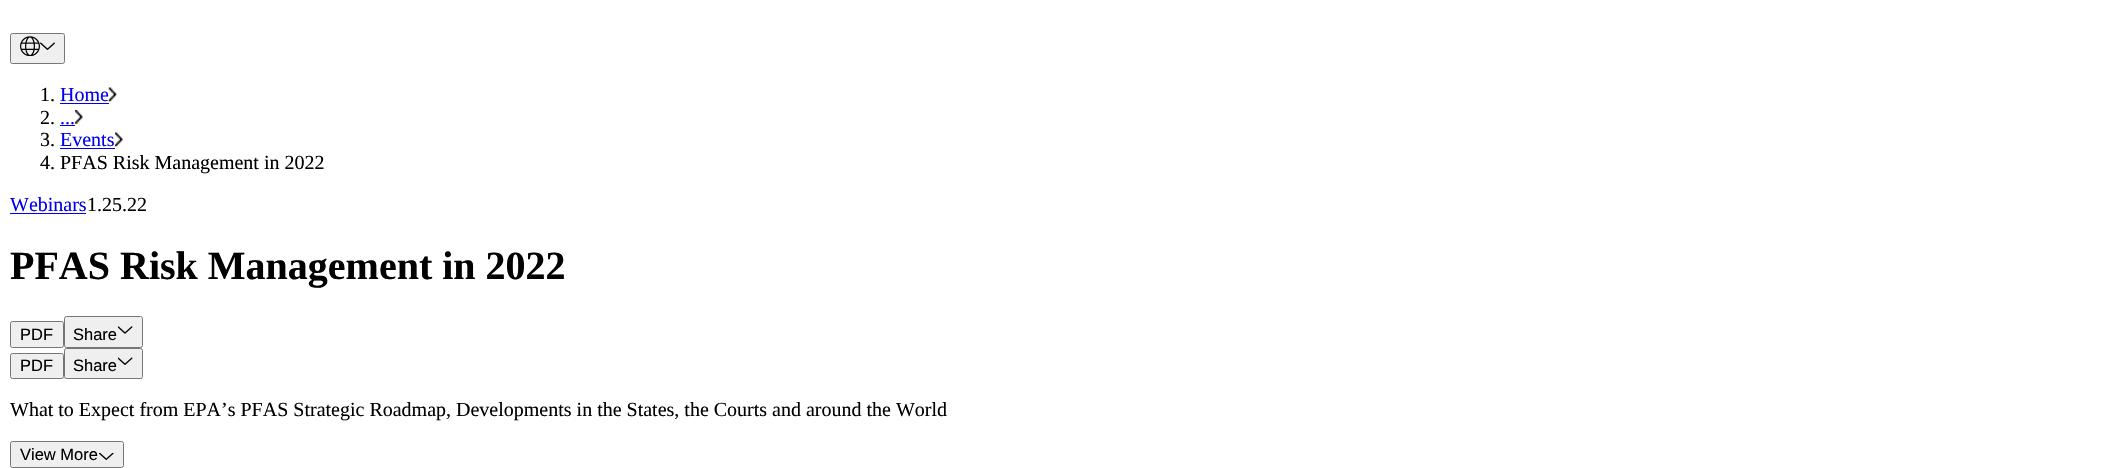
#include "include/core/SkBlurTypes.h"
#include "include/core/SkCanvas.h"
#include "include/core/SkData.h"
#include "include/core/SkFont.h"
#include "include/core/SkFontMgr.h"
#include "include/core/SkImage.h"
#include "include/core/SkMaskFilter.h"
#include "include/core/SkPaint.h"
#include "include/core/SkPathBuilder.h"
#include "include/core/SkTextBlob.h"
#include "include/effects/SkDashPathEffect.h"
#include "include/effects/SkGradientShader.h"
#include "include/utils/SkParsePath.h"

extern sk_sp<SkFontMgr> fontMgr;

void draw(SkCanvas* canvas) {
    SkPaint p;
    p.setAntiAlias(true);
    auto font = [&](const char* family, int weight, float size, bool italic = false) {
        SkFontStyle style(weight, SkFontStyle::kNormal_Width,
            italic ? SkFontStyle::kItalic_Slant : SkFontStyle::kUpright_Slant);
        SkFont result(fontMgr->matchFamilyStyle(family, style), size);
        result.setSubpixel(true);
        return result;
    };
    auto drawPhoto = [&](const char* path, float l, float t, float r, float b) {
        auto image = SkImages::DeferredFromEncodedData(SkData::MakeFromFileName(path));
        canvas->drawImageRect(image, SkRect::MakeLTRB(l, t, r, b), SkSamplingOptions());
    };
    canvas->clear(0xFFFFFFFF);
    p.setColor(0xFFEFEFEF);
    canvas->drawRoundRect(SkRect::MakeLTRB(10.5f, 33.5f, 64.5f, 63.5f), 2, 2, p);
    p.setStyle(SkPaint::kStroke_Style);
    p.setStrokeWidth(1);
    p.setColor(0xFF767676);
    canvas->drawRoundRect(SkRect::MakeLTRB(10.5f, 33.5f, 64.5f, 63.5f), 2, 2, p);
    drawPhoto("media/1.png", 20, 36, 40, 56);
    drawPhoto("media/2.png", 40, 42, 55, 50);
    auto font1 = font("Liberation Serif", 400, 20);
    p.setStyle(SkPaint::kFill_Style);
    p.setColor(0xFF000000);
    canvas->drawString("1.", 40, 101, font1, p);
    p.setColor(0xFF0000EE);
    canvas->drawString("Home", 60, 101, font1, p);
    canvas->drawRect(SkRect::MakeLTRB(60, 103, 109, 104), p);
    drawPhoto("media/3.png", 108, 87, 117, 102);
    p.setColor(0xFF000000);
    canvas->drawString("2.", 40, 124, font1, p);
    p.setColor(0xFF0000EE);
    canvas->drawString("...", 60, 124, font1, p);
    canvas->drawRect(SkRect::MakeLTRB(60, 125, 75, 126), p);
    drawPhoto("media/4.png", 75, 110, 83, 124);
    p.setColor(0xFF000000);
    canvas->drawString("3.", 40, 146, font1, p);
    p.setColor(0xFF0000EE);
    canvas->drawString("Events", 60, 146, font1, p);
    canvas->drawRect(SkRect::MakeLTRB(60, 148, 115, 149), p);
    drawPhoto("media/5.png", 115, 132, 123, 147);
    p.setColor(0xFF000000);
    canvas->drawString("4. PFAS Risk Management in 2022", 40, 169, font1, p);
    p.setColor(0xFF0000EE);
    canvas->drawString("Webinars", 10, 211, font1, p);
    canvas->drawRect(SkRect::MakeLTRB(10, 213, 86, 214), p);
    p.setColor(0xFF000000);
    canvas->drawString("1.25.22", 87, 211, font1, p);
    auto font2 = font("Liberation Serif", 700, 40);
    canvas->drawString("PFAS Risk Management in 2022", 10, 279, font2, p);
    p.setColor(0xFFEFEFEF);
    canvas->drawRoundRect(SkRect::MakeLTRB(10.5f, 321.5f, 63.5f, 347.5f), 2, 2, p);
    p.setStyle(SkPaint::kStroke_Style);
    p.setColor(0xFF767676);
    canvas->drawRoundRect(SkRect::MakeLTRB(10.5f, 321.5f, 63.5f, 347.5f), 2, 2, p);
    auto font3 = font("Liberation Sans", 400, 16.5f);
    p.setStyle(SkPaint::kFill_Style);
    p.setColor(0xFF000000);
    canvas->drawString("PDF", 20, 340, font3, p);
    p.setColor(0xFFEFEFEF);
    canvas->drawRoundRect(SkRect::MakeLTRB(64.5f, 316.5f, 142.5f, 347.5f), 2, 2, p);
    p.setStyle(SkPaint::kStroke_Style);
    p.setColor(0xFF767676);
    canvas->drawRoundRect(SkRect::MakeLTRB(64.5f, 316.5f, 142.5f, 347.5f), 2, 2, p);
    p.setStyle(SkPaint::kFill_Style);
    p.setColor(0xFF000000);
    canvas->drawString("Share", 73, 340, font3, p);
    drawPhoto("media/6.png", 118, 326, 133, 334);
    p.setColor(0xFFEFEFEF);
    canvas->drawRoundRect(SkRect::MakeLTRB(10.5f, 353.5f, 63.5f, 378.5f), 2, 2, p);
    p.setStyle(SkPaint::kStroke_Style);
    p.setColor(0xFF767676);
    canvas->drawRoundRect(SkRect::MakeLTRB(10.5f, 353.5f, 63.5f, 378.5f), 2, 2, p);
    p.setStyle(SkPaint::kFill_Style);
    p.setColor(0xFF000000);
    canvas->drawString("PDF", 20, 371, font3, p);
    p.setColor(0xFFEFEFEF);
    canvas->drawRoundRect(SkRect::MakeLTRB(64.5f, 348.5f, 142.5f, 378.5f), 2, 2, p);
    p.setStyle(SkPaint::kStroke_Style);
    p.setColor(0xFF767676);
    canvas->drawRoundRect(SkRect::MakeLTRB(64.5f, 348.5f, 142.5f, 378.5f), 2, 2, p);
    p.setStyle(SkPaint::kFill_Style);
    p.setColor(0xFF000000);
    canvas->drawString("Share", 73, 371, font3, p);
    drawPhoto("media/7.png", 118, 357, 133, 365);
    canvas->drawString("What to Expect from EPA’s PFAS Strategic Roadmap, Developments in the States, the Courts and around the World", 10, 416, font1, p);
    p.setColor(0xFFEFEFEF);
    canvas->drawRoundRect(SkRect::MakeLTRB(10.5f, 441.5f, 123.5f, 467.5f), 2, 2, p);
    p.setStyle(SkPaint::kStroke_Style);
    p.setColor(0xFF767676);
    canvas->drawRoundRect(SkRect::MakeLTRB(10.5f, 441.5f, 123.5f, 467.5f), 2, 2, p);
    p.setStyle(SkPaint::kFill_Style);
    p.setColor(0xFF000000);
    canvas->drawString("View More", 20, 460, font3, p);
    drawPhoto("media/8.png", 99, 453, 114, 460);
}
